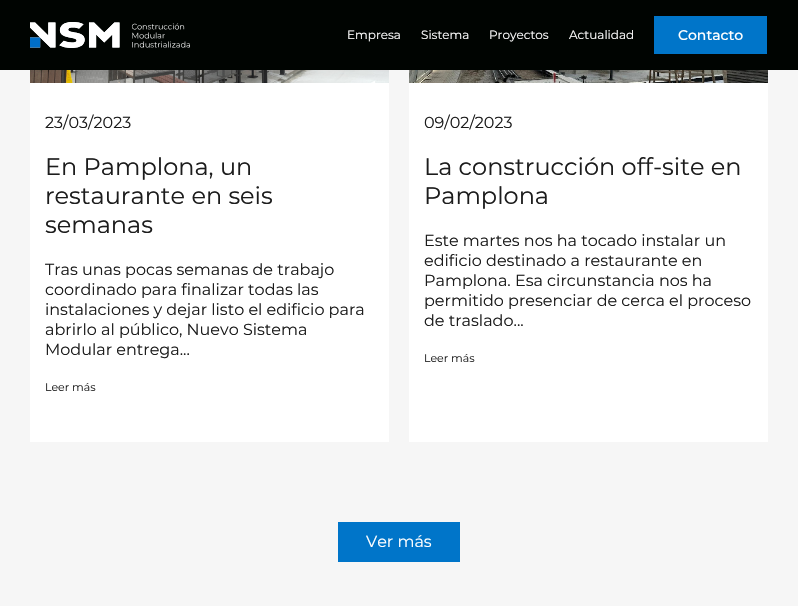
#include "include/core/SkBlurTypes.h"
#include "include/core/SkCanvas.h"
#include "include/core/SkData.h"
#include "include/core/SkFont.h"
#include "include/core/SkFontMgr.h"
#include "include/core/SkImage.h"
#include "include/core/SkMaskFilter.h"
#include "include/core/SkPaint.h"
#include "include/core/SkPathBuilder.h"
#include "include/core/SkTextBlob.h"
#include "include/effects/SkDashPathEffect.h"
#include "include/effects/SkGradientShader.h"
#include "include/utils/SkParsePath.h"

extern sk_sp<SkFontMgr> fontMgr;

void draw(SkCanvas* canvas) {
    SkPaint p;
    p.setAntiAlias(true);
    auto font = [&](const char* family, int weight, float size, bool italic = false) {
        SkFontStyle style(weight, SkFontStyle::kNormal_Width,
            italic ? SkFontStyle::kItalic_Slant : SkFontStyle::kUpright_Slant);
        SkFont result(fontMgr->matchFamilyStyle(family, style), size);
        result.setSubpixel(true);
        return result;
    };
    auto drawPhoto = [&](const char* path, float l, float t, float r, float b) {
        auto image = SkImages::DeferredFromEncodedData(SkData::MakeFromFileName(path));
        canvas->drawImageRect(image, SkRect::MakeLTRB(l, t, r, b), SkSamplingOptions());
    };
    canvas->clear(0xFFF6F6F6);
    p.setColor(0xFF000401);
    canvas->drawRect(SkRect::MakeLTRB(0, 0, 798, 70), p);
    drawPhoto("media/1.png", 30, 22, 190, 48);
    auto font1 = font("Montserrat", 400, 12);
    p.setColor(0xFFFFFFFF);
    {
        const struct { const char* s; float x, y; } items[] = {
            {"Empresa", 347, 39},
            {"Sistema", 421, 39},
            {"Proyectos", 489, 39},
            {"Actualidad", 569, 39},
        };
        for (auto [s, x, y] : items) {
            canvas->drawString(s, x, y, font1, p);
        }
    }
    p.setColor(0xFF0075C9);
    canvas->drawRect(SkRect::MakeLTRB(654, 16, 767, 54), p);
    auto font2 = font("Montserrat", 500, 14);
    p.setColor(0xFFFFFFFF);
    canvas->drawString("Contacto", 678, 40, font2, p);
    canvas->drawRect(SkRect::MakeLTRB(30, 83, 389, 442), p);
    drawPhoto("media/2.png", 30, 70, 389, 83);
    auto font3 = font("Montserrat", 400, 16);
    p.setColor(0xFF1C1C1C);
    canvas->drawString("23/03/2023", 45, 128, font3, p);
    auto font4 = font("Montserrat", 400, 24);
    {
        const struct { const char* s; float x, y; } items[] = {
            {"En Pamplona, un", 45, 175},
            {"restaurante en seis", 45, 204},
            {"semanas", 45, 233},
        };
        for (auto [s, x, y] : items) {
            canvas->drawString(s, x, y, font4, p);
        }
    }
    {
        const struct { const char* s; float x, y; } items[] = {
            {"Tras unas pocas semanas de trabajo", 45, 275},
            {"coordinado para finalizar todas las", 45, 295},
            {"instalaciones y dejar listo el edificio para", 45, 315},
            {"abrirlo al público, Nuevo Sistema", 45, 335},
            {"Modular entrega...", 45, 355},
        };
        for (auto [s, x, y] : items) {
            canvas->drawString(s, x, y, font3, p);
        }
    }
    auto font5 = font("Montserrat", 400, 11);
    canvas->drawString("Leer más", 45, 391, font5, p);
    p.setColor(0xFFFFFFFF);
    canvas->drawRect(SkRect::MakeLTRB(409, 83, 768, 442), p);
    drawPhoto("media/3.png", 409, 70, 768, 83);
    p.setColor(0xFF1C1C1C);
    canvas->drawString("09/02/2023", 424, 128, font3, p);
    canvas->drawString("La construcción off-site en", 424, 175, font4, p);
    canvas->drawString("Pamplona", 424, 204, font4, p);
    {
        const struct { const char* s; float x, y; } items[] = {
            {"Este martes nos ha tocado instalar un", 424, 246},
            {"edificio destinado a restaurante en", 424, 266},
            {"Pamplona. Esa circunstancia nos ha", 424, 286},
            {"permitido presenciar de cerca el proceso", 424, 306},
            {"de traslado...", 424, 326},
        };
        for (auto [s, x, y] : items) {
            canvas->drawString(s, x, y, font3, p);
        }
    }
    canvas->drawString("Leer más", 424, 362, font5, p);
    p.setColor(0xFF0075C9);
    canvas->drawRect(SkRect::MakeLTRB(338, 522, 460, 562), p);
    p.setColor(0xFFFFFFFF);
    canvas->drawString("Ver más", 366, 547, font3, p);
}
